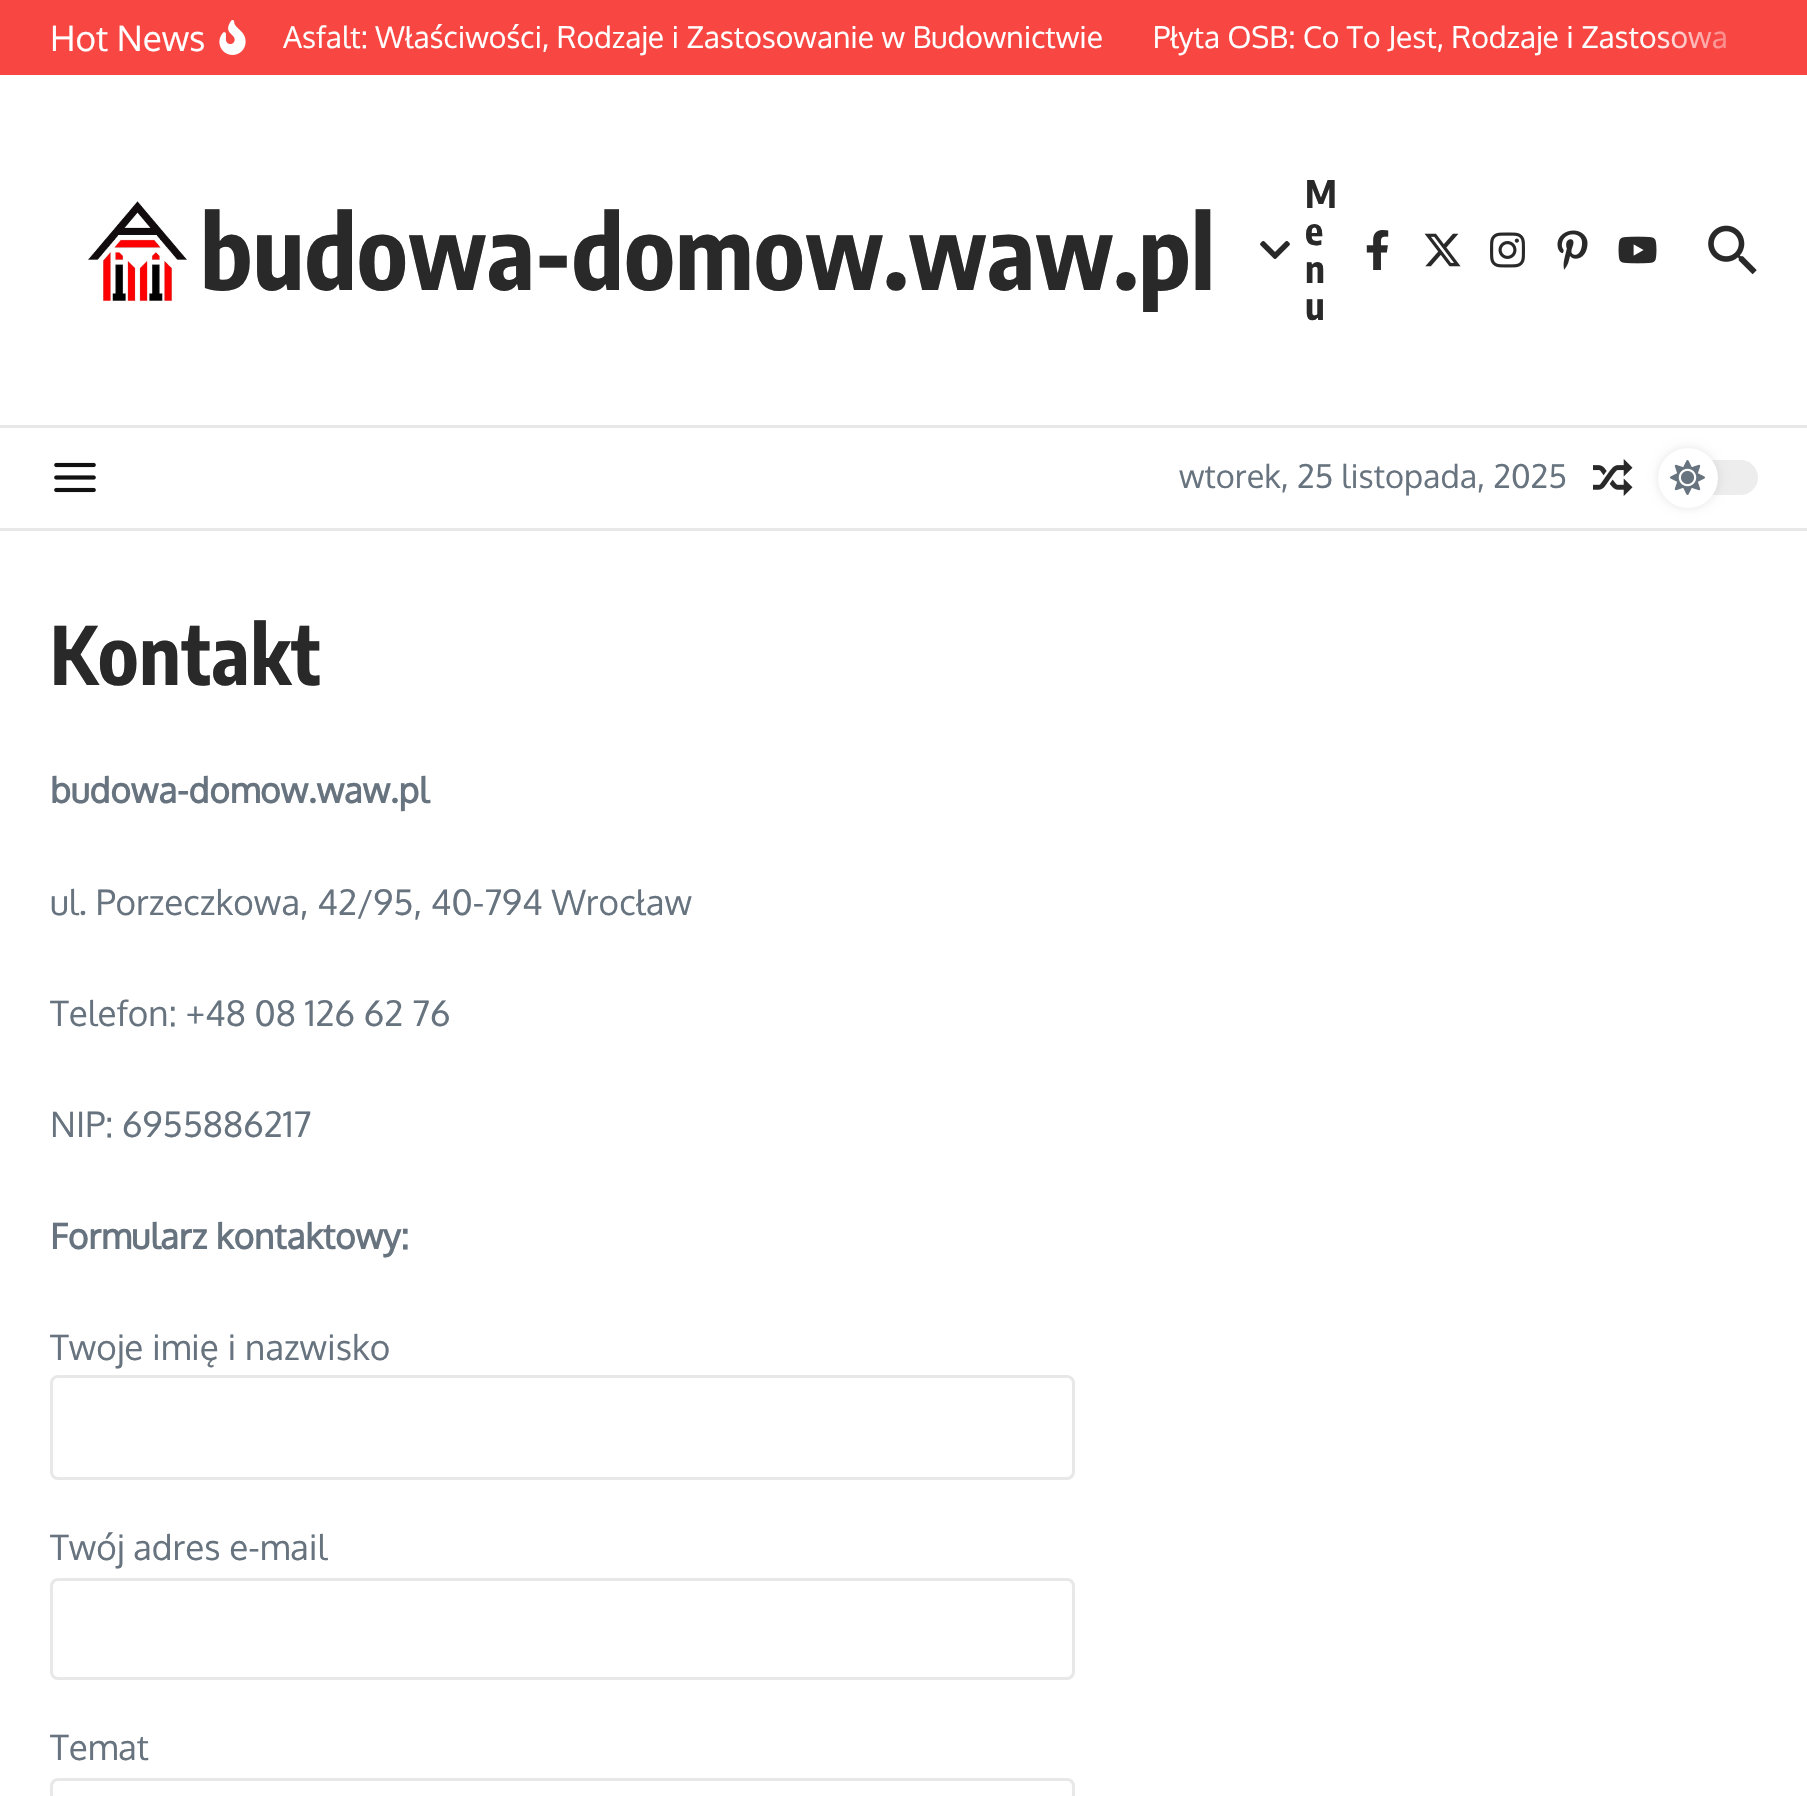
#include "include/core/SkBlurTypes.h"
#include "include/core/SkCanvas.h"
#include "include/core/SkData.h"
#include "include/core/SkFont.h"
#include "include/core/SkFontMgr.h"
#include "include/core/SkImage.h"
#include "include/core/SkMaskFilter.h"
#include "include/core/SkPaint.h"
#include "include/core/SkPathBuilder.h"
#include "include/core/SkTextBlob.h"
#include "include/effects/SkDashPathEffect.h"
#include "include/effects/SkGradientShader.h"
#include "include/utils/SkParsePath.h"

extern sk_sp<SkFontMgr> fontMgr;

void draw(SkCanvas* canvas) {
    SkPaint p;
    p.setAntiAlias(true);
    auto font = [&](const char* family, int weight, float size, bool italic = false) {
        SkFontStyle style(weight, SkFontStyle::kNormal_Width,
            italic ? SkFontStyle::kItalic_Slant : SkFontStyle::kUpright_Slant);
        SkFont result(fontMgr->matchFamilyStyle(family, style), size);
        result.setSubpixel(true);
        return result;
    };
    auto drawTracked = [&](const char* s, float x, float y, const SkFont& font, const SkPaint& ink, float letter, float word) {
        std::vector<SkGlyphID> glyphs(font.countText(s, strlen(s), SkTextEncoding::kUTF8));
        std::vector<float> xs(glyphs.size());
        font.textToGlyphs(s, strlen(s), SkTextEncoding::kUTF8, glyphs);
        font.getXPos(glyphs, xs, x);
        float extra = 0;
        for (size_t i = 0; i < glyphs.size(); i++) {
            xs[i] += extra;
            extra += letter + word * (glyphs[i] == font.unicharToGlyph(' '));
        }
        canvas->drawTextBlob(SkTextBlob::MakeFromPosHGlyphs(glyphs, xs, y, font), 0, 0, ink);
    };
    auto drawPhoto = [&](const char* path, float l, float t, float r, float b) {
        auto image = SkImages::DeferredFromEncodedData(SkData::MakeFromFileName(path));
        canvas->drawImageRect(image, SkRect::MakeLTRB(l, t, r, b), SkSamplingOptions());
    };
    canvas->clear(0xFFFFFFFF);
    p.setColor(0xFFF84643);
    canvas->drawRect(SkRect::MakeLTRB(0, 0, 1807, 75), p);
    auto font1 = font("Oxygen", 400, 35);
    p.setColor(0xFFFFFFFF);
    canvas->drawString("Hot News", 50, 51, font1, p);
    drawPhoto("media/1.png", 219, 20, 246, 55);
    auto font2 = font("Oxygen", 400, 30);
    canvas->drawString("Asfalt: Właściwości, Rodzaje i Zastosowanie w Budownictwie", 283, 48, font2, p);
    canvas->drawString("Płyta OSB: Co To Jest, Rodzaje i Zastosowa", 1153, 48, font2, p);
    {
        const SkColor colors[] = {0x00F84643, 0xFFF84643};
        const float stops[] = {0, 1};
        const SkPoint ends[] = {{1648, 38}, {1773, 37}};
        p.setShader(SkGradientShader::MakeLinear(ends, colors, stops, 2, SkTileMode::kClamp));
        p.setAlpha(255);
    }
    canvas->drawRect(SkRect::MakeLTRB(1651, 31, 1726, 49), p);
    p.setShader(nullptr);
    p.setColor(0xFFE8E8E8);
    canvas->drawRect(SkRect::MakeLTRB(0, 425, 1807, 428), p);
    drawPhoto("media/2.png", 88, 201, 187, 302);
    auto font3 = font("Encode Sans Condensed", 700, 100);
    p.setColor(0xFF292929);
    canvas->drawString("budowa-domow.waw.pl", 200, 290, font3, p);
    drawPhoto("media/3.png", 1260, 241, 1290, 259);
    auto font4 = font("Encode Sans Condensed", 700, 38);
    {
        const struct { const char* s; float x, y; } items[] = {
            {"M", 1305, 208},
            {"e", 1305, 245},
            {"n", 1305, 283},
            {"u", 1305, 320},
        };
        for (auto [s, x, y] : items) {
            canvas->drawString(s, x, y, font4, p);
        }
    }
    drawPhoto("media/4.png", 1366, 230, 1389, 270);
    drawPhoto("media/5.png", 1424, 233, 1461, 267);
    drawPhoto("media/6.png", 1490, 232, 1525, 268);
    drawPhoto("media/7.png", 1557, 230, 1588, 270);
    drawPhoto("media/8.png", 1618, 236, 1657, 264);
    drawPhoto("media/9.png", 1708, 225, 1757, 275);
    p.setColor(0xFFE8E8E8);
    canvas->drawRect(SkRect::MakeLTRB(0, 528, 1807, 531), p);
    drawPhoto("media/10.png", 54, 462, 96, 493);
    auto font5 = font("Oxygen", 400, 32.5f);
    p.setColor(0xFF67737E);
    canvas->drawString("wtorek, 25 listopada, 2025", 1179, 488, font5, p);
    drawPhoto("media/11.png", 1593, 459, 1633, 496);
    p.setColor(0xFFEDEDED);
    canvas->drawRoundRect(SkRect::MakeLTRB(1658, 460, 1758, 495), 17.5f, 17.5f, p);
    p.setColor(0x1A000000);
    p.setMaskFilter(SkMaskFilter::MakeBlur(kNormal_SkBlurStyle, 5));
    canvas->drawRoundRect(SkRect::MakeLTRB(1658, 448, 1718, 508), 30, 30, p);
    p.setMaskFilter(nullptr);
    p.setColor(0xFFFFFFFF);
    canvas->drawCircle(1688, 478, 30, p);
    drawPhoto("media/12.png", 1670, 460, 1705, 495);
    auto font6 = font("Encode Sans Condensed", 700, 80);
    p.setColor(0xFF292929);
    drawTracked("Kontakt", 50, 685, font6, p, 0.5f, 0);
    auto font7 = font("Oxygen", 700, 35);
    p.setColor(0xFF67737E);
    canvas->drawString("budowa-domow.waw.pl", 50, 803, font7, p);
    {
        const struct { const char* s; float x, y; } items[] = {
            {"ul. Porzeczkowa, 42/95, 40-794 Wrocław", 50, 915},
            {"Telefon: +48 08 126 62 76", 50, 1026},
            {"NIP: 6955886217", 50, 1137},
        };
        for (auto [s, x, y] : items) {
            canvas->drawString(s, x, y, font1, p);
        }
    }
    canvas->drawString("Formularz kontaktowy:", 50, 1249, font7, p);
    canvas->drawString("Twoje imię i nazwisko", 50, 1360, font1, p);
    p.setStyle(SkPaint::kStroke_Style);
    p.setStrokeWidth(3);
    p.setColor(0xFFE8E8E8);
    canvas->drawRoundRect(SkRect::MakeLTRB(51.5f, 1376.5f, 1073.5f, 1478.5f), 6.5f, 6.5f, p);
    p.setStyle(SkPaint::kFill_Style);
    p.setColor(0xFF67737E);
    canvas->drawString("Twój adres e-mail", 50, 1560, font1, p);
    p.setStyle(SkPaint::kStroke_Style);
    p.setColor(0xFFE8E8E8);
    canvas->drawRoundRect(SkRect::MakeLTRB(51.5f, 1579.5f, 1073.5f, 1678.5f), 6.5f, 6.5f, p);
    p.setStyle(SkPaint::kFill_Style);
    p.setColor(0xFF67737E);
    canvas->drawString("Temat", 50, 1760, font1, p);
    p.setStyle(SkPaint::kStroke_Style);
    p.setColor(0xFFE8E8E8);
    canvas->drawRoundRect(SkRect::MakeLTRB(51.5f, 1779.5f, 1073.5f, 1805.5f), 6.5f, 6.5f, p);
}
